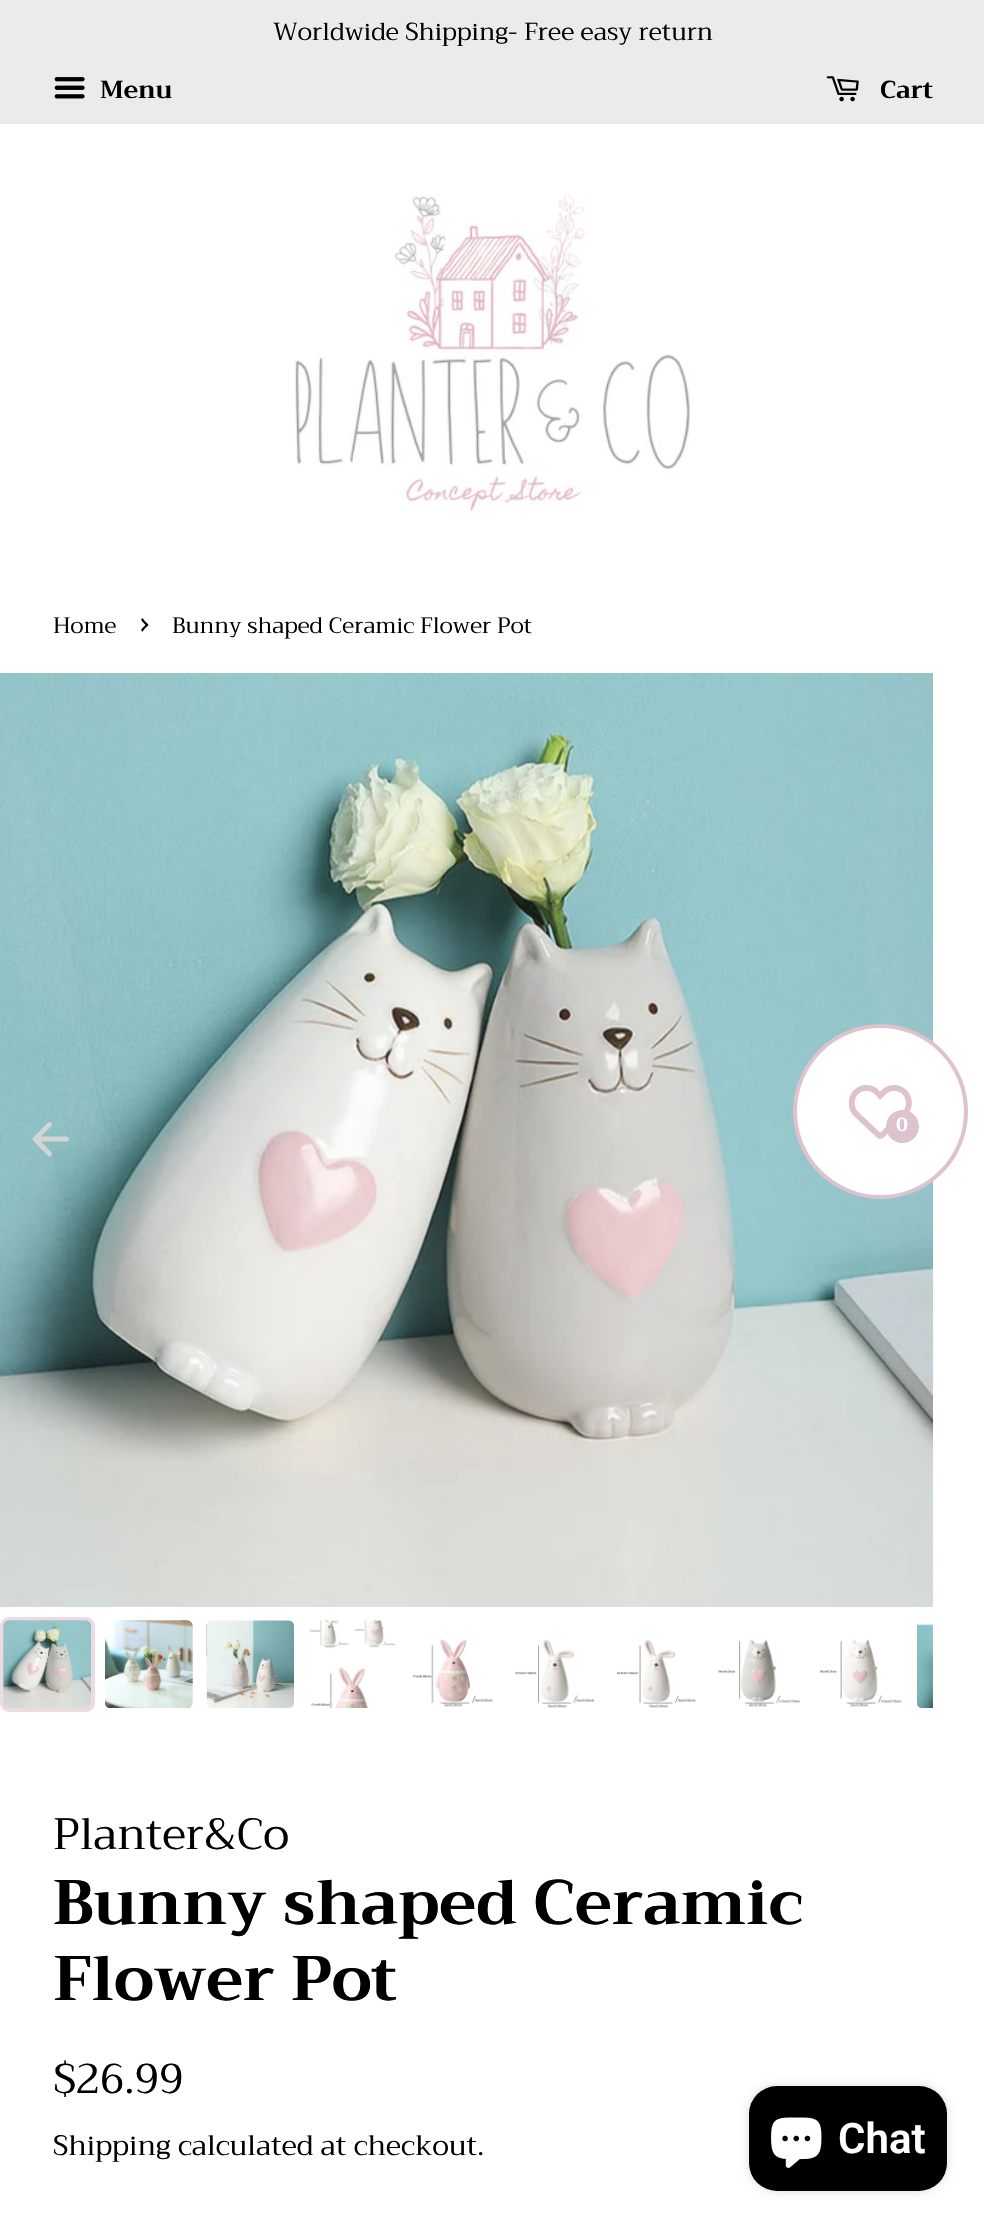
#include "include/core/SkBlurTypes.h"
#include "include/core/SkCanvas.h"
#include "include/core/SkData.h"
#include "include/core/SkFont.h"
#include "include/core/SkFontMgr.h"
#include "include/core/SkImage.h"
#include "include/core/SkMaskFilter.h"
#include "include/core/SkPaint.h"
#include "include/core/SkPathBuilder.h"
#include "include/core/SkTextBlob.h"
#include "include/effects/SkDashPathEffect.h"
#include "include/effects/SkGradientShader.h"
#include "include/utils/SkParsePath.h"

extern sk_sp<SkFontMgr> fontMgr;

void draw(SkCanvas* canvas) {
    SkPaint p;
    p.setAntiAlias(true);
    auto font = [&](const char* family, int weight, float size, bool italic = false) {
        SkFontStyle style(weight, SkFontStyle::kNormal_Width,
            italic ? SkFontStyle::kItalic_Slant : SkFontStyle::kUpright_Slant);
        SkFont result(fontMgr->matchFamilyStyle(family, style), size);
        result.setSubpixel(true);
        return result;
    };
    auto drawPhoto = [&](const char* path, float l, float t, float r, float b) {
        auto image = SkImages::DeferredFromEncodedData(SkData::MakeFromFileName(path));
        canvas->drawImageRect(image, SkRect::MakeLTRB(l, t, r, b), SkSamplingOptions());
    };
    canvas->clear(0xFFFFFFFF);
    p.setColor(0xFFEBEBEB);
    canvas->drawRect(SkRect::MakeLTRB(0, 0, 984, 124), p);
    auto font1 = font("Trirong", 400, 24.5f);
    p.setColor(0xFF000000);
    canvas->drawString("Worldwide Shipping- Free easy return", 273, 40, font1, p);
    drawPhoto("media/1.png", 54, 77, 85, 99);
    auto font2 = font("Trirong", 700, 24.5f);
    canvas->drawString("Menu", 100, 98, font2, p);
    drawPhoto("media/2.png", 826, 76, 859, 102);
    canvas->drawString("Cart", 880, 98, font2, p);
    drawPhoto("media/3.png", 295, 194, 690, 512);
    auto font3 = font("Trirong", 400, 22.25f);
    canvas->drawString("Home", 53, 633, font3, p);
    auto font4 = font("Trirong", 400, 31);
    canvas->drawString("›", 140, 633, font4, p);
    canvas->drawString("Bunny shaped Ceramic Flower Pot", 172, 633, font3, p);
    drawPhoto("media/4.png", 0, 673, 933, 1607);
    drawPhoto("media/5.png", 0, 683, 933, 1441);
    p.setStyle(SkPaint::kStroke_Style);
    p.setStrokeWidth(4.9f);
    p.setStrokeCap(SkPaint::kRound_Cap);
    p.setStrokeJoin(SkPaint::kRound_Join);
    p.setColor(0xD9DED7D7);
    canvas->drawPath(SkPathBuilder().moveTo(49.5f, 1154).lineTo(35, 1139).lineTo(49.5f, 1124.5f).moveTo(37, 1139).lineTo(66.5f, 1139).detach(), p);
    p.setStrokeWidth(4);
    p.setStrokeCap(SkPaint::kButt_Cap);
    p.setStrokeJoin(SkPaint::kMiter_Join);
    p.setColor(0xFFECDBE1);
    canvas->drawRoundRect(SkRect::MakeLTRB(2, 1619, 93, 1710), 7, 7, p);
    drawPhoto("media/6.png", 3, 1620, 91, 1708);
    drawPhoto("media/7.png", 3, 1620, 91, 1708);
    drawPhoto("media/8.png", 105, 1620, 193, 1708);
    drawPhoto("media/9.png", 105, 1620, 193, 1708);
    drawPhoto("media/10.png", 206, 1620, 294, 1708);
    drawPhoto("media/11.png", 309, 1620, 395, 1708);
    drawPhoto("media/12.png", 412, 1639, 493, 1707);
    drawPhoto("media/13.png", 514, 1639, 595, 1708);
    drawPhoto("media/14.png", 616, 1639, 696, 1708);
    drawPhoto("media/15.png", 717, 1639, 800, 1707);
    drawPhoto("media/16.png", 819, 1639, 902, 1707);
    drawPhoto("media/17.png", 917, 1624, 933, 1708);
    drawPhoto("media/18.png", 917, 1624, 933, 1708);
    auto font5 = font("Trirong", 400, 43.75f);
    p.setStyle(SkPaint::kFill_Style);
    p.setColor(0xFF000000);
    canvas->drawString("Planter&Co", 53, 1849, font5, p);
    auto font6 = font("Trirong", 700, 63);
    canvas->drawString("Bunny shaped Ceramic", 53, 1924, font6, p);
    canvas->drawString("Flower Pot", 53, 2000, font6, p);
    auto font7 = font("Trirong", 400, 41.5f);
    canvas->drawString("$26.99", 53, 2093, font7, p);
    auto font8 = font("Trirong", 400, 28);
    canvas->drawString("Shipping calculated at checkout.", 53, 2155, font8, p);
    p.setColor(0xFFFFFFFF);
    canvas->drawCircle(880.5f, 1111.5f, 85.5f, p);
    p.setStyle(SkPaint::kStroke_Style);
    p.setColor(0xFFDEC2CD);
    canvas->drawCircle(880.5f, 1111.5f, 85.5f, p);
    drawPhoto("media/19.png", 849, 1084, 912, 1139);
    p.setStyle(SkPaint::kFill_Style);
    canvas->drawCircle(902.5f, 1126.5f, 16.5f, p);
    auto font9 = font("Trirong", 700, 19);
    p.setColor(0xFFFFFFFF);
    canvas->drawString("0", 896, 1131, font9, p);
    p.setColor(0x26000000);
    p.setMaskFilter(SkMaskFilter::MakeBlur(kNormal_SkBlurStyle, 4.5f));
    canvas->drawRoundRect(SkRect::MakeLTRB(749, 2086, 947, 2191), 28, 28, p);
    p.setMaskFilter(nullptr);
    p.setColor(0xFF000000);
    canvas->drawRoundRect(SkRect::MakeLTRB(749, 2086, 947, 2191), 28, 28, p);
    drawPhoto("media/20.png", 771, 2117, 822, 2168);
    auto font10 = font("Roboto", 600, 42);
    p.setColor(0xFFFFFFFF);
    canvas->drawString("Chat", 838, 2153, font10, p);
}
